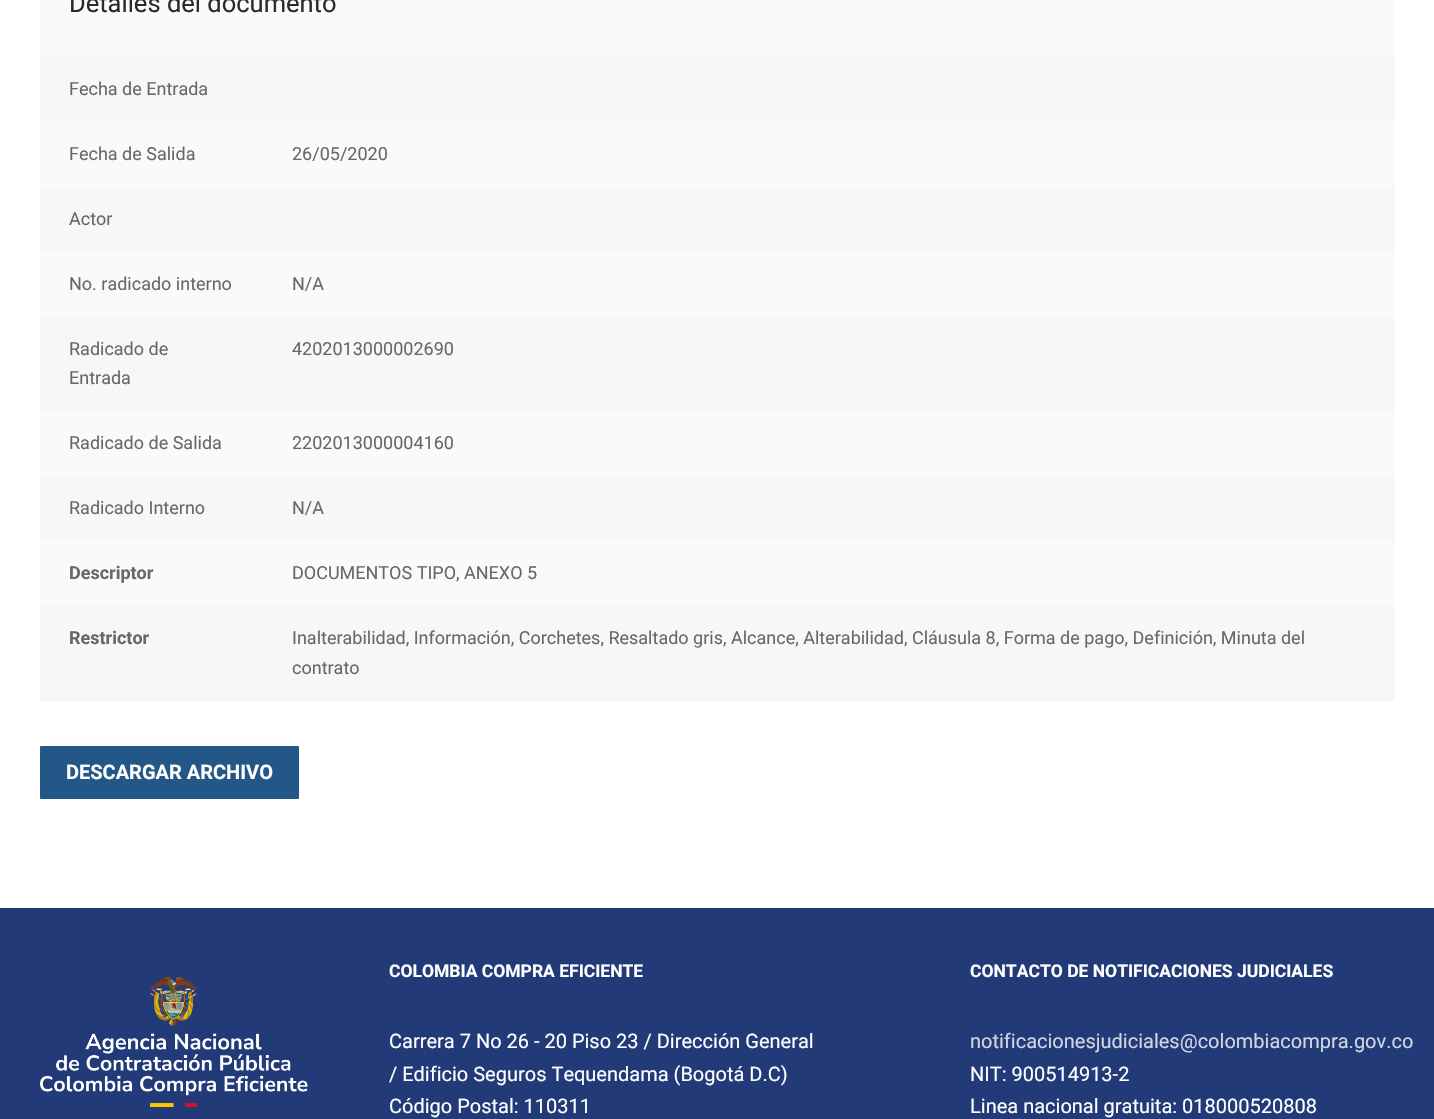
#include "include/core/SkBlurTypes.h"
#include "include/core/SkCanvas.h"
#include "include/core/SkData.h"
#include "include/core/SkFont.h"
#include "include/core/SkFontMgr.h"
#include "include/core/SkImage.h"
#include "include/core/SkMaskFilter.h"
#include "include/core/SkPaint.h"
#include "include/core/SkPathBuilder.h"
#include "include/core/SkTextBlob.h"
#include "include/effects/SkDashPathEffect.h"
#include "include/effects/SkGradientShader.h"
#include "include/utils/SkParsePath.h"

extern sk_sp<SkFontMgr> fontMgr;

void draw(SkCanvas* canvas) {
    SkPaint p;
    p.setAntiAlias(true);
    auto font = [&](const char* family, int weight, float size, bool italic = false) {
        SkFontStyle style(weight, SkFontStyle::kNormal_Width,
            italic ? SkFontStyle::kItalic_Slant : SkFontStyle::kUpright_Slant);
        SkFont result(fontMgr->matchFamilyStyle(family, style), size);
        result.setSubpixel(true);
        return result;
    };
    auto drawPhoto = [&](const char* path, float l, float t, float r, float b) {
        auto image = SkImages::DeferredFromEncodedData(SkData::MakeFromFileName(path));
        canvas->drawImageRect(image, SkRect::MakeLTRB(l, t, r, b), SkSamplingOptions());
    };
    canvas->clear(0xFFFFFFFF);
    p.setColor(0xFFFAFAFA);
    canvas->drawRect(SkRect::MakeLTRB(40, 0, 1395, 56), p);
    auto font1 = font("Roboto", 400, 25.5f);
    p.setColor(0xFF2B2B2B);
    canvas->drawString("Detalles del documento", 69, 12, font1, p);
    p.setColor(0xFFF7F7F7);
    canvas->drawRect(SkRect::MakeLTRB(40, 56, 1395, 121), p);
    auto font2 = font("Roboto", 400, 18);
    p.setColor(0xFF686868);
    canvas->drawString("Fecha de Entrada", 69, 95, font2, p);
    p.setColor(0xFFFAFAFA);
    canvas->drawRect(SkRect::MakeLTRB(40, 121, 1395, 186), p);
    p.setColor(0xFF686868);
    canvas->drawString("Fecha de Salida", 69, 160, font2, p);
    canvas->drawString("26/05/2020", 292, 160, font2, p);
    p.setColor(0xFFF7F7F7);
    canvas->drawRect(SkRect::MakeLTRB(40, 186, 1395, 251), p);
    p.setColor(0xFF686868);
    canvas->drawString("Actor", 69, 225, font2, p);
    p.setColor(0xFFFAFAFA);
    canvas->drawRect(SkRect::MakeLTRB(40, 251, 1395, 318), p);
    p.setColor(0xFF686868);
    canvas->drawString("No. radicado interno", 69, 290, font2, p);
    canvas->drawString("N/A", 292, 290, font2, p);
    p.setColor(0xFFF7F7F7);
    canvas->drawRect(SkRect::MakeLTRB(40, 318, 1395, 411), p);
    p.setColor(0xFF686868);
    {
        const struct { const char* s; float x, y; } items[] = {
            {"Radicado de", 69, 355},
            {"Entrada", 69, 384},
            {"4202013000002690", 292, 355},
        };
        for (auto [s, x, y] : items) {
            canvas->drawString(s, x, y, font2, p);
        }
    }
    p.setColor(0xFFFAFAFA);
    canvas->drawRect(SkRect::MakeLTRB(40, 411, 1395, 476), p);
    p.setColor(0xFF686868);
    canvas->drawString("Radicado de Salida", 69, 449, font2, p);
    canvas->drawString("2202013000004160", 292, 449, font2, p);
    p.setColor(0xFFF7F7F7);
    canvas->drawRect(SkRect::MakeLTRB(40, 476, 1395, 541), p);
    p.setColor(0xFF686868);
    canvas->drawString("Radicado Interno", 69, 514, font2, p);
    canvas->drawString("N/A", 292, 514, font2, p);
    p.setColor(0xFFFAFAFA);
    canvas->drawRect(SkRect::MakeLTRB(40, 541, 1395, 606), p);
    auto font3 = font("Roboto", 700, 18);
    p.setColor(0xFF686868);
    canvas->drawString("Descriptor", 69, 579, font3, p);
    canvas->drawString("DOCUMENTOS TIPO, ANEXO 5", 292, 579, font2, p);
    p.setColor(0xFFF7F7F7);
    canvas->drawRect(SkRect::MakeLTRB(40, 606, 1395, 701), p);
    p.setColor(0xFF686868);
    canvas->drawString("Restrictor", 69, 644, font3, p);
    canvas->drawString("Inalterabilidad, Información, Corchetes, Resaltado gris, Alcance, Alterabilidad, Cláusula 8, Forma de pago, Definición, Minuta del", 292, 644, font2, p);
    canvas->drawString("contrato", 292, 674, font2, p);
    p.setColor(0xFF235787);
    canvas->drawRoundRect(SkRect::MakeLTRB(40, 746, 299, 799), 1, 1, p);
    auto font4 = font("Roboto", 700, 20);
    p.setColor(0xFFFFFFFF);
    canvas->drawString("DESCARGAR ARCHIVO", 66, 779, font4, p);
    p.setColor(0xFF223B78);
    canvas->drawRect(SkRect::MakeLTRB(0, 908, 1434, 1119), p);
    drawPhoto("media/1.png", 40, 977, 308, 1107);
    auto font5 = font("Roboto", 700, 17.5f);
    p.setColor(0xFFFFFFFF);
    canvas->drawString("COLOMBIA COMPRA EFICIENTE", 389, 977, font5, p);
    auto font6 = font("Roboto", 400, 20);
    {
        const struct { const char* s; float x, y; } items[] = {
            {"Carrera 7 No 26 - 20 Piso 23 / Dirección General", 389, 1048},
            {"/ Edificio Seguros Tequendama (Bogotá D.C)", 389, 1081},
            {"Código Postal: 110311", 389, 1113},
        };
        for (auto [s, x, y] : items) {
            canvas->drawString(s, x, y, font6, p);
        }
    }
    canvas->drawString("CONTACTO DE NOTIFICACIONES JUDICIALES", 970, 977, font5, p);
    p.setColor(0xFFD1D6E3);
    canvas->drawString("notificacionesjudiciales@colombiacompra.gov.co", 970, 1048, font6, p);
    p.setColor(0xFFFFFFFF);
    canvas->drawString("NIT: 900514913-2", 970, 1081, font6, p);
    canvas->drawString("Linea nacional gratuita: 018000520808", 970, 1113, font6, p);
}
